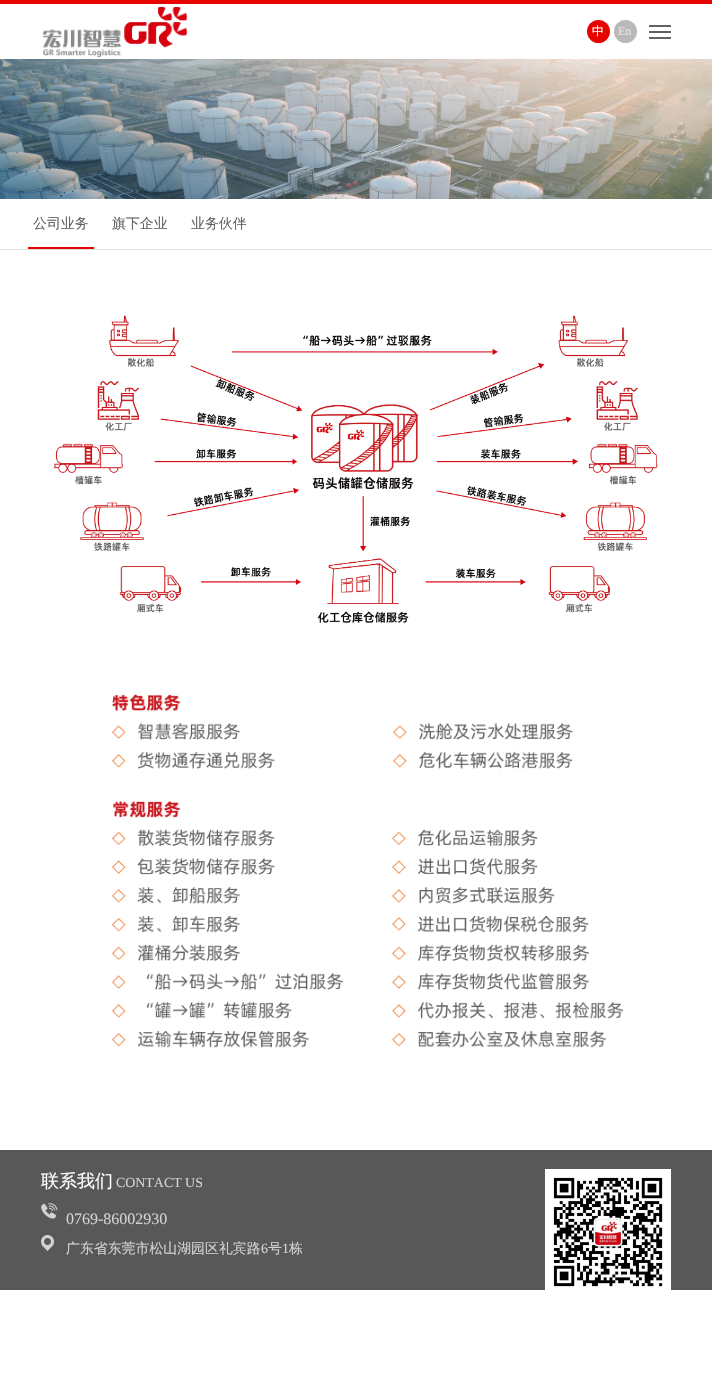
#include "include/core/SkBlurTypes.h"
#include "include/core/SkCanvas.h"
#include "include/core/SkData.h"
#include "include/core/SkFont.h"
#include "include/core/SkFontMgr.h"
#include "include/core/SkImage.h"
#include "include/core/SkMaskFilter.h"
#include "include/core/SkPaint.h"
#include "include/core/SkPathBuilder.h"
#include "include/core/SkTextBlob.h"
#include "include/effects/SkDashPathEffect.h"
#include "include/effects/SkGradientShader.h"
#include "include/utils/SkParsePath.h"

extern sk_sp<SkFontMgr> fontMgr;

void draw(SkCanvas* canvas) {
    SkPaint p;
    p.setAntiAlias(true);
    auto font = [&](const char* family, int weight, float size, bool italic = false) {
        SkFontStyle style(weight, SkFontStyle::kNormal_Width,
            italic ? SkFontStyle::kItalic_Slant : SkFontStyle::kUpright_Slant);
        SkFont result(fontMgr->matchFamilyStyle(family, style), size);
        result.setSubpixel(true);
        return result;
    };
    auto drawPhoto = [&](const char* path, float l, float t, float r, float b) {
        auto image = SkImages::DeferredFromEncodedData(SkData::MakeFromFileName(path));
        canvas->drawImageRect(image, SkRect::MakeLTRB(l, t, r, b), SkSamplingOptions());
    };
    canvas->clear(0xFFFFFFFF);
    p.setColor(0xFFE70300);
    canvas->drawRect(SkRect::MakeLTRB(0, 0, 712, 4), p);
    drawPhoto("media/1.png", 43, 7, 188, 57);
    canvas->drawCircle(598.5f, 31.5f, 11.5f, p);
    auto font1 = font("WenQuanYi Zen Hei", 500, 12);
    p.setColor(0xFFFFFFFF);
    canvas->drawString("中", 592, 35, font1, p);
    p.setColor(0xFFB9B9B9);
    canvas->drawCircle(625.5f, 31.5f, 11.5f, p);
    auto font2 = font("Liberation Serif", 400, 12);
    p.setColor(0xFFE5E5E5);
    canvas->drawString("En", 618, 35, font2, p);
    {
        const struct { float l, t, r, b; SkColor color; } items[] = {
            {649, 25, 671, 27, 0xFF606060},
            {649, 31, 671, 33, 0xFF606060},
            {649, 37, 671, 39, 0xFF606060},
        };
        for (auto [l, t, r, b, color] : items) {
            p.setColor(color);
            canvas->drawRect(SkRect::MakeLTRB(l, t, r, b), p);
        }
    }
    drawPhoto("media/2.png", 0, 59, 712, 199);
    p.setColor(0xFFE1E1E1);
    canvas->drawRect(SkRect::MakeLTRB(0, 249, 712, 250), p);
    p.setColor(0xFFE70300);
    canvas->drawRect(SkRect::MakeLTRB(28, 247, 94, 249), p);
    auto font3 = font("WenQuanYi Zen Hei", 500, 13.9f);
    p.setColor(0xFF606060);
    {
        const struct { const char* s; float x, y; } items[] = {
            {"公司业务", 33, 228},
            {"旗下企业", 112, 228},
            {"业务伙伴", 191, 228},
        };
        for (auto [s, x, y] : items) {
            canvas->drawString(s, x, y, font3, p);
        }
    }
    drawPhoto("media/3.png", 54, 315, 658, 623);
    drawPhoto("media/4.png", 112, 694, 624, 1048);
    p.setColor(0xFF585858);
    canvas->drawRect(SkRect::MakeLTRB(0, 1150, 712, 1290), p);
    auto font4 = font("WenQuanYi Zen Hei", 500, 18);
    p.setColor(0xFFFFFFFF);
    canvas->drawString("联系我们", 41, 1187, font4, p);
    auto font5 = font("Liberation Serif", 400, 13.9f);
    p.setColor(0xFFD3D3D3);
    canvas->drawString("CONTACT US", 116, 1187, font5, p);
    drawPhoto("media/5.png", 41, 1203, 58, 1219);
    auto font6 = font("Liberation Serif", 400, 16);
    canvas->drawString("0769-86002930", 66, 1224, font6, p);
    drawPhoto("media/6.png", 41, 1235, 54, 1251);
    canvas->drawString("广东省东莞市松山湖园区礼宾路", 66, 1253, font3, p);
    canvas->drawString("6", 261, 1253, font5, p);
    canvas->drawString("号", 268, 1253, font3, p);
    canvas->drawString("1", 282, 1253, font5, p);
    canvas->drawString("栋", 289, 1253, font3, p);
    drawPhoto("media/7.png", 545, 1169, 671, 1290);
}
